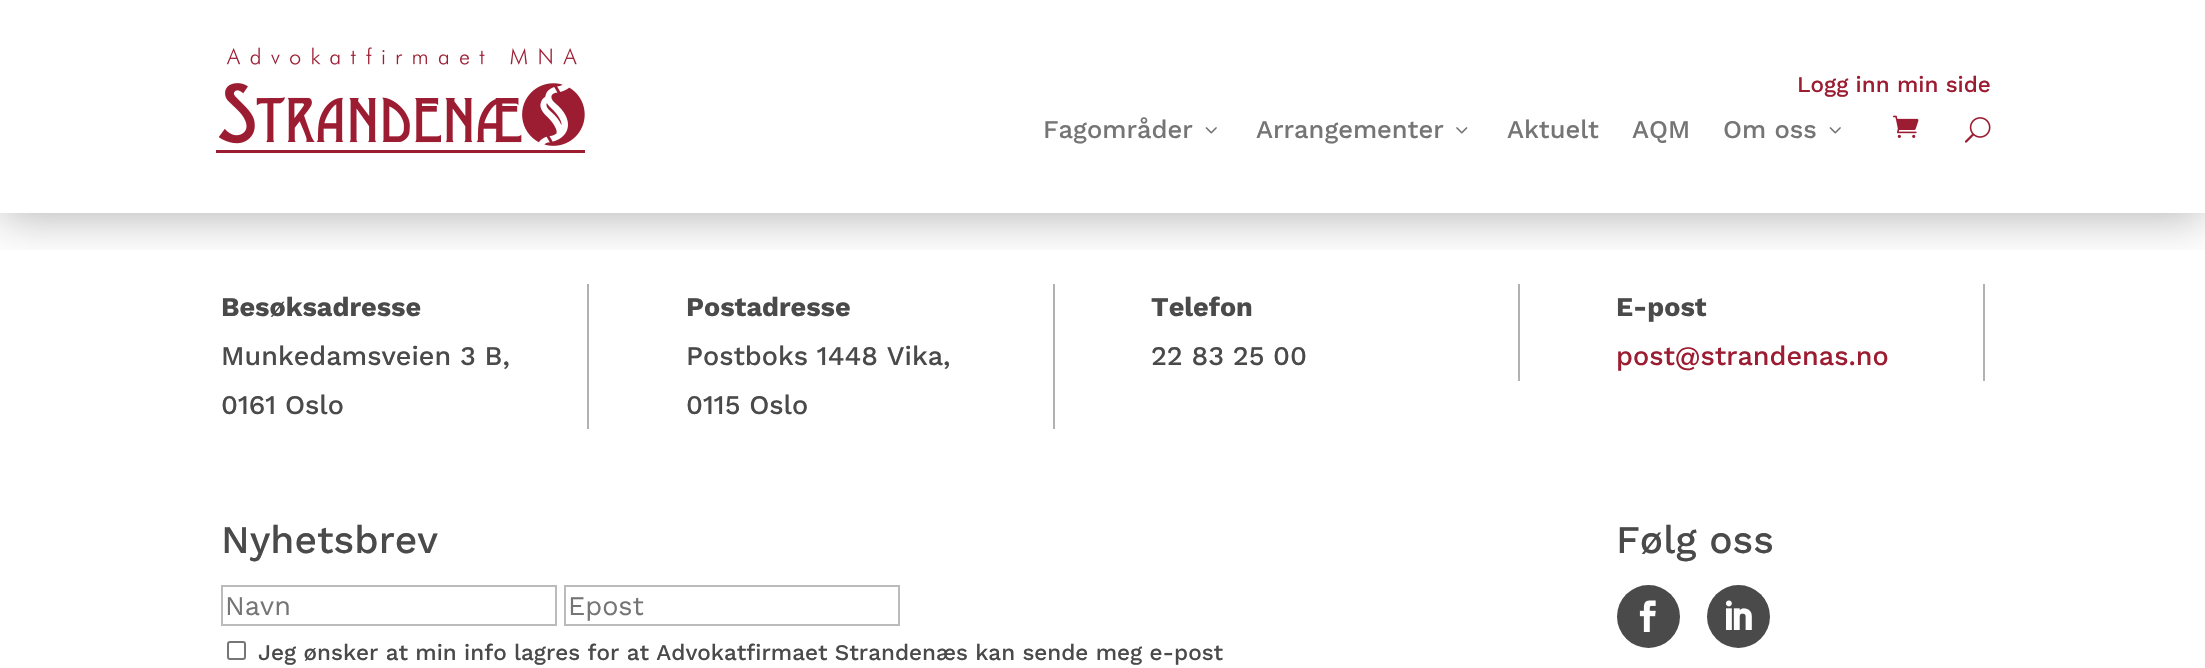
#include "include/core/SkBlurTypes.h"
#include "include/core/SkCanvas.h"
#include "include/core/SkData.h"
#include "include/core/SkFont.h"
#include "include/core/SkFontMgr.h"
#include "include/core/SkImage.h"
#include "include/core/SkMaskFilter.h"
#include "include/core/SkPaint.h"
#include "include/core/SkPathBuilder.h"
#include "include/core/SkTextBlob.h"
#include "include/effects/SkDashPathEffect.h"
#include "include/effects/SkGradientShader.h"
#include "include/utils/SkParsePath.h"

extern sk_sp<SkFontMgr> fontMgr;

void draw(SkCanvas* canvas) {
    SkPaint p;
    p.setAntiAlias(true);
    auto font = [&](const char* family, int weight, float size, bool italic = false) {
        SkFontStyle style(weight, SkFontStyle::kNormal_Width,
            italic ? SkFontStyle::kItalic_Slant : SkFontStyle::kUpright_Slant);
        SkFont result(fontMgr->matchFamilyStyle(family, style), size);
        result.setSubpixel(true);
        return result;
    };
    auto drawPhoto = [&](const char* path, float l, float t, float r, float b) {
        auto image = SkImages::DeferredFromEncodedData(SkData::MakeFromFileName(path));
        canvas->drawImageRect(image, SkRect::MakeLTRB(l, t, r, b), SkSamplingOptions());
    };
    canvas->clear(0xFFFFFFFF);
    {
        const struct { float l, t, r, b; SkColor color; } items[] = {
            {587, 284, 589, 429, 0xFFB1B1B1},
            {1053, 284, 1055, 429, 0xFFB1B1B1},
            {1518, 284, 1520, 381, 0xFFB1B1B1},
            {1983, 284, 1985, 381, 0xFFB1B1B1},
        };
        for (auto [l, t, r, b, color] : items) {
            p.setColor(color);
            canvas->drawRect(SkRect::MakeLTRB(l, t, r, b), p);
        }
    }
    canvas->save();
    canvas->clipRect(SkRect::MakeLTRB(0, 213, 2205, 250));
    p.setColor(0x4D000000);
    p.setMaskFilter(SkMaskFilter::MakeBlur(kNormal_SkBlurStyle, 22.5f));
    canvas->drawRect(SkRect::MakeLTRB(0, 3, 2205, 216), p);
    p.setMaskFilter(nullptr);
    canvas->restore();
    drawPhoto("media/1.png", 216, 47, 585, 153);
    auto font1 = font("Work Sans", 500, 22.5f);
    p.setColor(0xFF9C1C32);
    canvas->drawString("Logg inn min side", 1797, 92, font1, p);
    auto font2 = font("Work Sans", 500, 25.5f);
    p.setColor(0xFF757575);
    canvas->drawString("Fagområder", 1043, 138, font2, p);
    drawPhoto("media/2.png", 1205, 127, 1217, 134);
    canvas->drawString("Arrangementer", 1256, 138, font2, p);
    drawPhoto("media/3.png", 1456, 127, 1468, 134);
    {
        const struct { const char* s; float x, y; } items[] = {
            {"Aktuelt", 1507, 138},
            {"AQM", 1632, 138},
            {"Om oss", 1723, 138},
        };
        for (auto [s, x, y] : items) {
            canvas->drawString(s, x, y, font2, p);
        }
    }
    drawPhoto("media/2.png", 1829, 127, 1841, 134);
    drawPhoto("media/4.png", 1893, 115, 1919, 138);
    drawPhoto("media/5.png", 1964, 117, 1991, 143);
    auto font3 = font("Work Sans", 700, 27);
    p.setColor(0xFF4A4A4A);
    canvas->drawString("Besøksadresse", 221, 316, font3, p);
    auto font4 = font("Work Sans", 500, 27);
    canvas->drawString("Munkedamsveien 3 B,", 221, 365, font4, p);
    canvas->drawString("0161 Oslo", 221, 414, font4, p);
    canvas->drawString("Postadresse", 686, 316, font3, p);
    canvas->drawString("Postboks 1448 Vika,", 686, 365, font4, p);
    canvas->drawString("0115 Oslo", 686, 414, font4, p);
    canvas->drawString("Telefon", 1151, 316, font3, p);
    canvas->drawString("22 83 25 00", 1151, 365, font4, p);
    canvas->drawString("E-post", 1616, 316, font3, p);
    p.setColor(0xFF9C1C32);
    canvas->drawString("post@strandenas.no", 1616, 365, font4, p);
    auto font5 = font("Work Sans", 500, 39);
    p.setColor(0xFF4A4A4A);
    canvas->drawString("Nyhetsbrev", 221, 553, font5, p);
    p.setStyle(SkPaint::kStroke_Style);
    p.setStrokeWidth(2);
    p.setColor(0xFFBBBBBB);
    canvas->drawRect(SkRect::MakeLTRB(222, 586, 556, 625), p);
    auto font6 = font("Work Sans", 400, 27);
    p.setStyle(SkPaint::kFill_Style);
    p.setColor(0xFF757575);
    canvas->drawString("Navn", 225, 615, font6, p);
    p.setStyle(SkPaint::kStroke_Style);
    p.setColor(0xFFBBBBBB);
    canvas->drawRect(SkRect::MakeLTRB(565, 586, 899, 625), p);
    p.setStyle(SkPaint::kFill_Style);
    p.setColor(0xFF757575);
    canvas->drawString("Epost", 568, 615, font6, p);
    p.setStyle(SkPaint::kStroke_Style);
    p.setColor(0xFF767676);
    canvas->drawRoundRect(SkRect::MakeLTRB(228, 642, 245, 659), 2, 2, p);
    p.setStyle(SkPaint::kFill_Style);
    p.setColor(0xFF4A4A4A);
    canvas->drawString("Jeg ønsker at min info lagres for at Advokatfirmaet Strandenæs kan sende meg e-post", 258, 660, font1, p);
    canvas->drawString("Følg oss", 1616, 553, font5, p);
    canvas->drawCircle(1648.5f, 616.5f, 31.5f, p);
    drawPhoto("media/6.png", 1639, 600, 1656, 632);
    canvas->drawCircle(1738.5f, 616.5f, 31.5f, p);
    drawPhoto("media/7.png", 1726, 600, 1752, 630);
}
